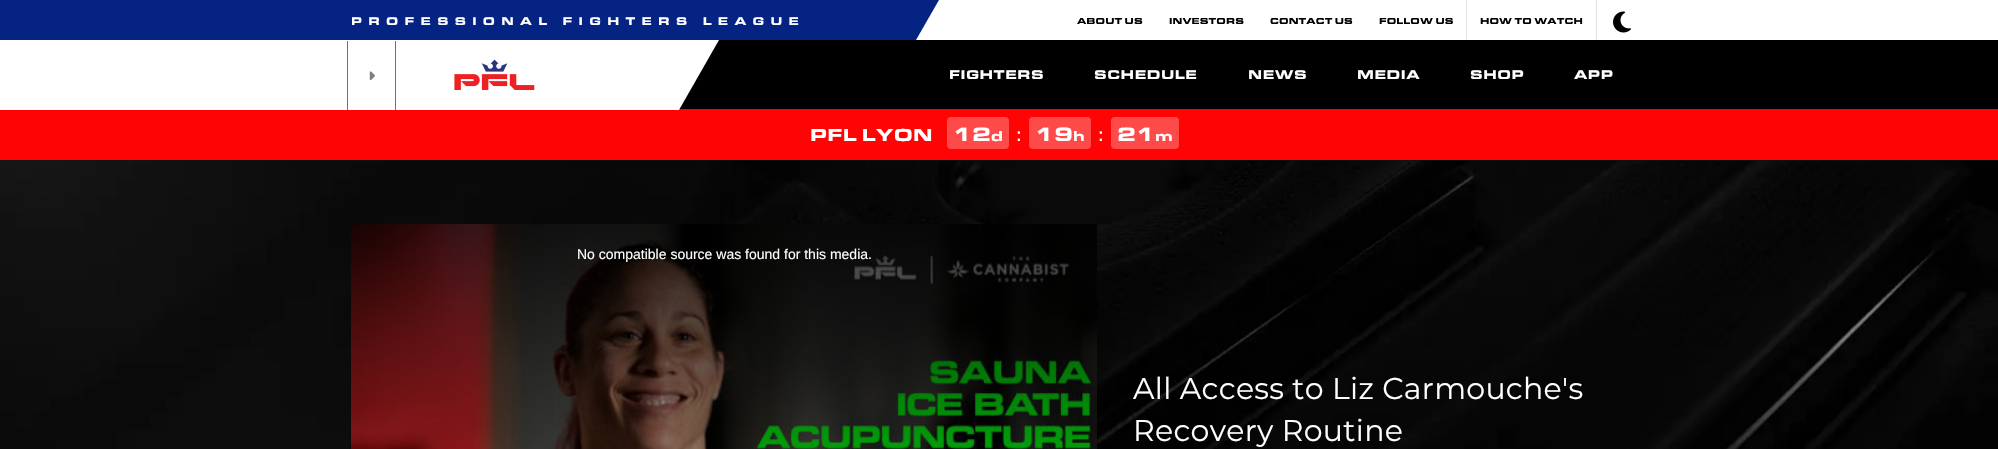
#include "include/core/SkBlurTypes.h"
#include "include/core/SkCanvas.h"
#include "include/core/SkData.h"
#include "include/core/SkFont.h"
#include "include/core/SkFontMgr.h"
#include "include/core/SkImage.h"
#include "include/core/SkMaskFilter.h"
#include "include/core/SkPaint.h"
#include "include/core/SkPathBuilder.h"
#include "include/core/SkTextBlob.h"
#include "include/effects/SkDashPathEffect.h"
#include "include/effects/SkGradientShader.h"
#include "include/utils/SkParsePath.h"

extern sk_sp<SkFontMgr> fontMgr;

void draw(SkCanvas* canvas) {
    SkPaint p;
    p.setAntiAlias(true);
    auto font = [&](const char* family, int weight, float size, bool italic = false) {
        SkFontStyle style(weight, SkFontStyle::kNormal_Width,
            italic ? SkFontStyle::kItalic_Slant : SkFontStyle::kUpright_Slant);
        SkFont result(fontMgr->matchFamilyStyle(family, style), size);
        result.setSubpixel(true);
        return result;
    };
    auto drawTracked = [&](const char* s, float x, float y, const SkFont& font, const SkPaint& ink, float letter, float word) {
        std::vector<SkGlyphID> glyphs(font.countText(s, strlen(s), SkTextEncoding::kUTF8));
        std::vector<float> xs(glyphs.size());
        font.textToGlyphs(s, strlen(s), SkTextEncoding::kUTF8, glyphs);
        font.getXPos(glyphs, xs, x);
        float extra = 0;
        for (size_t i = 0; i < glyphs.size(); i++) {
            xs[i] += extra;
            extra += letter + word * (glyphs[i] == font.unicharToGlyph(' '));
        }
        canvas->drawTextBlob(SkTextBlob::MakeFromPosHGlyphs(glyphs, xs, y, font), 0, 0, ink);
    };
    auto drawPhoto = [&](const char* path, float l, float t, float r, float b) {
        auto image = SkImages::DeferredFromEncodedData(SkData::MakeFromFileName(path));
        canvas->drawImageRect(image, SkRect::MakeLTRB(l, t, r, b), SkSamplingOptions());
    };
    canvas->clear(0xFFFFFFFF);
    p.setColor(0xFF052383);
    canvas->drawPath(SkPathBuilder().moveTo(0, 0).lineTo(939, 0).lineTo(916, 40).lineTo(-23, 40).close().detach(), p);
    auto font1 = font("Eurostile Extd", 900, 11.5f);
    p.setColor(0xFFFFFFFF);
    drawTracked("PROFESSIONAL FIGHTERS LEAGUE", 351, 25, font1, p, 6.3f, 0);
    auto font2 = font("Eurostile Extd", 900, 9);
    p.setColor(0xFF000000);
    {
        const struct { const char* s; float x, y; } items[] = {
            {"ABOUT US", 1077, 24},
            {"INVESTORS", 1169, 24},
            {"CONTACT US", 1270, 24},
            {"FOLLOW US", 1379, 24},
        };
        for (auto [s, x, y] : items) {
            drawTracked(s, x, y, font2, p, 0.1f, 0);
        }
    }
    p.setColor(0xFFDEE2E6);
    canvas->drawRect(SkRect::MakeLTRB(1596, 0, 1597, 48), p);
    canvas->drawRect(SkRect::MakeLTRB(1466, 0, 1467, 48), p);
    p.setColor(0xFF000000);
    drawTracked("HOW TO WATCH", 1480, 24, font2, p, 0.1f, 0);
    drawPhoto("media/1.png", 1613, 11, 1631, 33);
    canvas->drawRect(SkRect::MakeLTRB(679, 40, 1998, 109), p);
    p.setColor(0xFFFF0404);
    canvas->drawRect(SkRect::MakeLTRB(0, 109, 1998, 160), p);
    p.setColor(0xFFFFFFFF);
    canvas->drawPath(SkPathBuilder().moveTo(0, 40).lineTo(719, 40).lineTo(679, 110).lineTo(-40, 110).close().detach(), p);
    p.setColor(0xFF707070);
    canvas->drawRect(SkRect::MakeLTRB(395, 41, 396, 110), p);
    canvas->drawRect(SkRect::MakeLTRB(347, 41, 348, 110), p);
    drawPhoto("media/2.png", 369, 71, 375, 81);
    drawPhoto("media/3.png", 454, 59, 535, 90);
    auto font3 = font("Eurostile Extd", 900, 13);
    p.setColor(0xFFFFFFFF);
    {
        const struct { const char* s; float x, y; } items[] = {
            {"FIGHTERS", 949, 79},
            {"SCHEDULE", 1094, 79},
            {"NEWS", 1248, 79},
            {"MEDIA", 1357, 79},
            {"SHOP", 1470, 79},
            {"APP", 1574, 79},
        };
        for (auto [s, x, y] : items) {
            drawTracked(s, x, y, font3, p, 0.5f, 0);
        }
    }
    auto font4 = font("Eurostile Extd", 900, 18);
    drawTracked("PFL LYON", 810, 141, font4, p, 0.25f, 0);
    p.setColor(0xFFFF4A4A);
    canvas->drawRoundRect(SkRect::MakeLTRB(947, 117, 1009, 149), 4, 4, p);
    auto font5 = font("Eurostile Extd", 900, 20);
    p.setColor(0xFFFFFFFF);
    canvas->drawString("12", 953, 141, font5, p);
    auto font6 = font("Eurostile Extd", 900, 15);
    canvas->drawString("d", 991, 141, font6, p);
    auto font7 = font("Eurostile Extd", 400, 20);
    canvas->drawString(":", 1016, 141, font7, p);
    p.setColor(0xFFFF4A4A);
    canvas->drawRoundRect(SkRect::MakeLTRB(1029, 117, 1091, 149), 4, 4, p);
    p.setColor(0xFFFFFFFF);
    canvas->drawString("19", 1035, 141, font5, p);
    canvas->drawString("h", 1073, 141, font6, p);
    canvas->drawString(":", 1098, 141, font7, p);
    p.setColor(0xFFFF4A4A);
    canvas->drawRoundRect(SkRect::MakeLTRB(1111, 117, 1179, 149), 4, 4, p);
    p.setColor(0xFFFFFFFF);
    canvas->drawString("21", 1117, 141, font5, p);
    canvas->drawString("m", 1155, 141, font6, p);
    drawPhoto("media/4.png", 0, 160, 1998, 449);
    drawPhoto("media/5.png", 351, 224, 1097, 449);
    auto font8 = font("Liberation Sans", 400, 14);
    canvas->drawString("No compatible source was found for this media.", 577, 259, font8, p);
    auto font9 = font("Montserrat", 400, 30);
    drawTracked("All Access to Liz Carmouche's", 1133, 399, font9, p, 0.3f, 0);
    drawTracked("Recovery Routine", 1133, 441, font9, p, 0.3f, 0);
}
